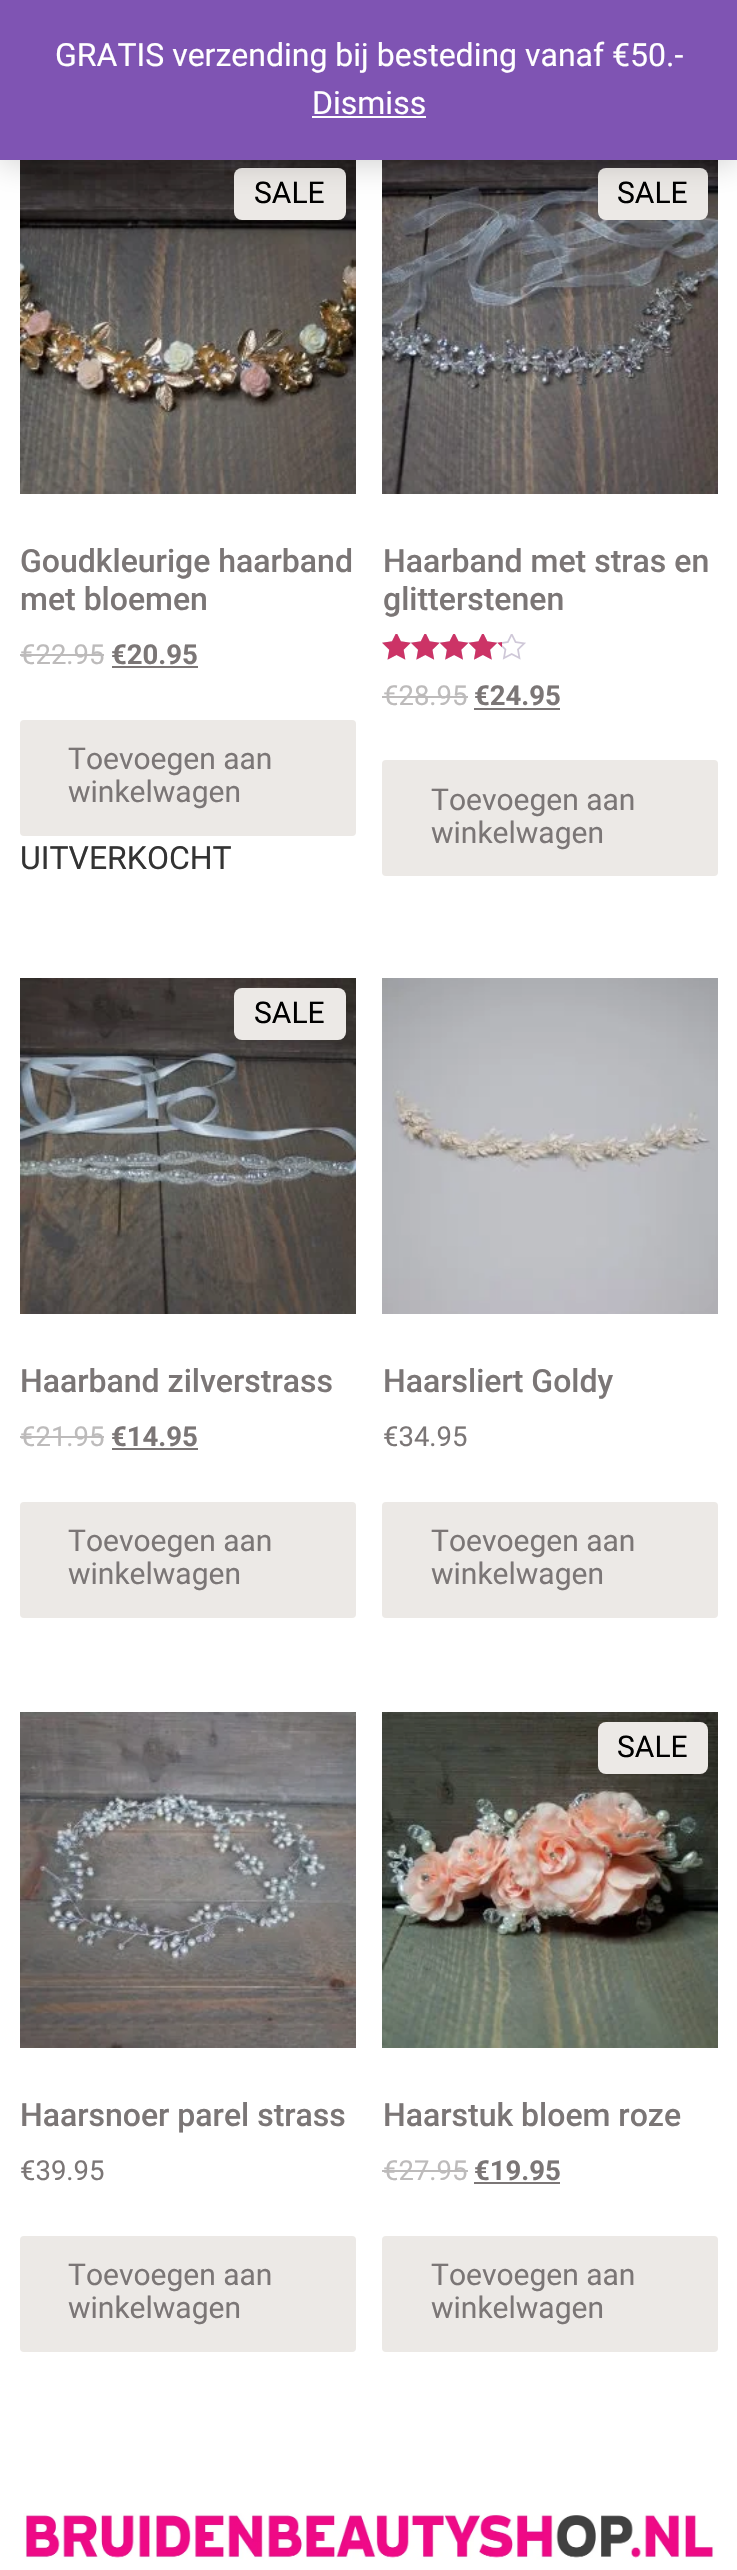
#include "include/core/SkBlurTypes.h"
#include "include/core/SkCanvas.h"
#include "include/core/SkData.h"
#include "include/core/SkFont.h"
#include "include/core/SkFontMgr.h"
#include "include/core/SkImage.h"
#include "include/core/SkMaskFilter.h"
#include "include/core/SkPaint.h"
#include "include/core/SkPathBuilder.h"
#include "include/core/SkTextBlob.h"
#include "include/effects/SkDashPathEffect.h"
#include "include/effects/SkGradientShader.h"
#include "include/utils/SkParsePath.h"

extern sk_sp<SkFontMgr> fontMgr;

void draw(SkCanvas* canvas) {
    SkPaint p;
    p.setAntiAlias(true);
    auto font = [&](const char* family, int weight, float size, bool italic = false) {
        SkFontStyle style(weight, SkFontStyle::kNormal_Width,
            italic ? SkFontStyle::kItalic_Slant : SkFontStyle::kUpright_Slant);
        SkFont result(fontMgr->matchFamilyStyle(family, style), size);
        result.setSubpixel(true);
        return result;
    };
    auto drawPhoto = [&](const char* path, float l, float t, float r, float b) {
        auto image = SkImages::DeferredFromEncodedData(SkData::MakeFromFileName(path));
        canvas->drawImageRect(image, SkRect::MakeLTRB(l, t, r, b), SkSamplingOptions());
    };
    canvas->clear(0xFFFFFFFF);
    drawPhoto("media/1.png", 20, 160, 356, 494);
    p.setColor(0xFFECE9E6);
    canvas->drawRoundRect(SkRect::MakeLTRB(234, 168, 346, 220), 8, 8, p);
    drawPhoto("media/2.png", 382, 160, 718, 494);
    canvas->drawRoundRect(SkRect::MakeLTRB(598, 168, 708, 220), 8, 8, p);
    p.setColor(0x33000000);
    p.setMaskFilter(SkMaskFilter::MakeBlur(kNormal_SkBlurStyle, 16));
    canvas->drawRect(SkRect::MakeLTRB(0, 2, 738, 162), p);
    p.setMaskFilter(nullptr);
    p.setColor(0xFF7F54B3);
    canvas->drawRect(SkRect::MakeLTRB(0, 0, 737, 160), p);
    auto font1 = font("Roboto", 400, 32);
    p.setColor(0xFFFFFFFF);
    canvas->drawString("GRATIS verzending bij besteding vanaf €50.-", 55, 66, font1, p);
    canvas->drawString("Dismiss", 312, 114, font1, p);
    canvas->drawRect(SkRect::MakeLTRB(312, 116, 426, 118), p);
    auto font2 = font("Roboto", 400, 30);
    p.setColor(0xFF000000);
    canvas->drawString("SALE", 254, 203, font2, p);
    auto font3 = font("Roboto", 500, 32);
    p.setColor(0xFF7B7676);
    canvas->drawString("Goudkleurige haarband", 20, 572, font3, p);
    canvas->drawString("met bloemen", 20, 610, font3, p);
    auto font4 = font("Roboto", 400, 27.5f);
    p.setColor(0xFFBDBBBB);
    canvas->drawString("€22.95", 20, 664, font4, p);
    canvas->drawRect(SkRect::MakeLTRB(20, 654, 104, 656), p);
    auto font5 = font("Roboto", 700, 27.5f);
    p.setColor(0xFF7B7676);
    canvas->drawString("€20.95", 111, 664, font5, p);
    canvas->drawRect(SkRect::MakeLTRB(112, 666, 198, 668), p);
    p.setColor(0xFFECE9E6);
    canvas->drawRoundRect(SkRect::MakeLTRB(20, 720, 356, 836), 4, 4, p);
    p.setColor(0xFF7B7676);
    canvas->drawString("Toevoegen aan", 68, 769, font2, p);
    canvas->drawString("winkelwagen", 68, 802, font2, p);
    p.setColor(0xFF333333);
    canvas->drawString("UITVERKOCHT", 20, 869, font1, p);
    p.setColor(0xFF000000);
    canvas->drawString("SALE", 617, 203, font2, p);
    p.setColor(0xFF7B7676);
    canvas->drawString("Haarband met stras en", 383, 572, font3, p);
    canvas->drawString("glitterstenen", 383, 610, font3, p);
    drawPhoto("media/3.png", 382, 634, 526, 660);
    drawPhoto("media/4.png", 382, 634, 502, 660);
    p.setColor(0xFFBDBBBB);
    canvas->drawString("€28.95", 383, 705, font4, p);
    canvas->drawRect(SkRect::MakeLTRB(382, 696, 468, 698), p);
    p.setColor(0xFF7B7676);
    canvas->drawString("€24.95", 474, 705, font5, p);
    canvas->drawRect(SkRect::MakeLTRB(474, 708, 560, 710), p);
    p.setColor(0xFFECE9E6);
    canvas->drawRoundRect(SkRect::MakeLTRB(382, 760, 718, 876), 4, 4, p);
    p.setColor(0xFF7B7676);
    canvas->drawString("Toevoegen aan", 431, 810, font2, p);
    canvas->drawString("winkelwagen", 431, 843, font2, p);
    drawPhoto("media/5.png", 20, 978, 356, 1314);
    p.setColor(0xFFECE9E6);
    canvas->drawRoundRect(SkRect::MakeLTRB(234, 988, 346, 1040), 8, 8, p);
    p.setColor(0xFF000000);
    canvas->drawString("SALE", 254, 1023, font2, p);
    p.setColor(0xFF7B7676);
    canvas->drawString("Haarband zilverstrass", 20, 1392, font3, p);
    p.setColor(0xFFBDBBBB);
    canvas->drawString("€21.95", 20, 1446, font4, p);
    canvas->drawRect(SkRect::MakeLTRB(20, 1436, 104, 1438), p);
    p.setColor(0xFF7B7676);
    canvas->drawString("€14.95", 111, 1446, font5, p);
    canvas->drawRect(SkRect::MakeLTRB(112, 1448, 198, 1450), p);
    p.setColor(0xFFECE9E6);
    canvas->drawRoundRect(SkRect::MakeLTRB(20, 1502, 356, 1618), 4, 4, p);
    p.setColor(0xFF7B7676);
    canvas->drawString("Toevoegen aan", 68, 1551, font2, p);
    canvas->drawString("winkelwagen", 68, 1584, font2, p);
    drawPhoto("media/6.png", 382, 978, 718, 1314);
    canvas->drawString("Haarsliert Goldy", 383, 1392, font3, p);
    canvas->drawString("€34.95", 383, 1446, font4, p);
    p.setColor(0xFFECE9E6);
    canvas->drawRoundRect(SkRect::MakeLTRB(382, 1502, 718, 1618), 4, 4, p);
    p.setColor(0xFF7B7676);
    canvas->drawString("Toevoegen aan", 431, 1551, font2, p);
    canvas->drawString("winkelwagen", 431, 1584, font2, p);
    drawPhoto("media/7.png", 20, 1712, 356, 2048);
    canvas->drawString("Haarsnoer parel strass", 20, 2126, font3, p);
    canvas->drawString("€39.95", 20, 2180, font4, p);
    p.setColor(0xFFECE9E6);
    canvas->drawRoundRect(SkRect::MakeLTRB(20, 2236, 356, 2352), 4, 4, p);
    p.setColor(0xFF7B7676);
    canvas->drawString("Toevoegen aan", 68, 2285, font2, p);
    canvas->drawString("winkelwagen", 68, 2318, font2, p);
    drawPhoto("media/8.png", 382, 1712, 718, 2048);
    p.setColor(0xFFECE9E6);
    canvas->drawRoundRect(SkRect::MakeLTRB(598, 1722, 708, 1774), 8, 8, p);
    p.setColor(0xFF000000);
    canvas->drawString("SALE", 617, 1757, font2, p);
    p.setColor(0xFF7B7676);
    canvas->drawString("Haarstuk bloem roze", 383, 2126, font3, p);
    p.setColor(0xFFBDBBBB);
    canvas->drawString("€27.95", 383, 2180, font4, p);
    canvas->drawRect(SkRect::MakeLTRB(382, 2170, 468, 2172), p);
    p.setColor(0xFF7B7676);
    canvas->drawString("€19.95", 474, 2180, font5, p);
    canvas->drawRect(SkRect::MakeLTRB(474, 2182, 560, 2184), p);
    p.setColor(0xFFECE9E6);
    canvas->drawRoundRect(SkRect::MakeLTRB(382, 2236, 718, 2352), 4, 4, p);
    p.setColor(0xFF7B7676);
    canvas->drawString("Toevoegen aan", 431, 2285, font2, p);
    canvas->drawString("winkelwagen", 431, 2318, font2, p);
    drawPhoto("media/9.png", 23, 2513, 715, 2560);
}
